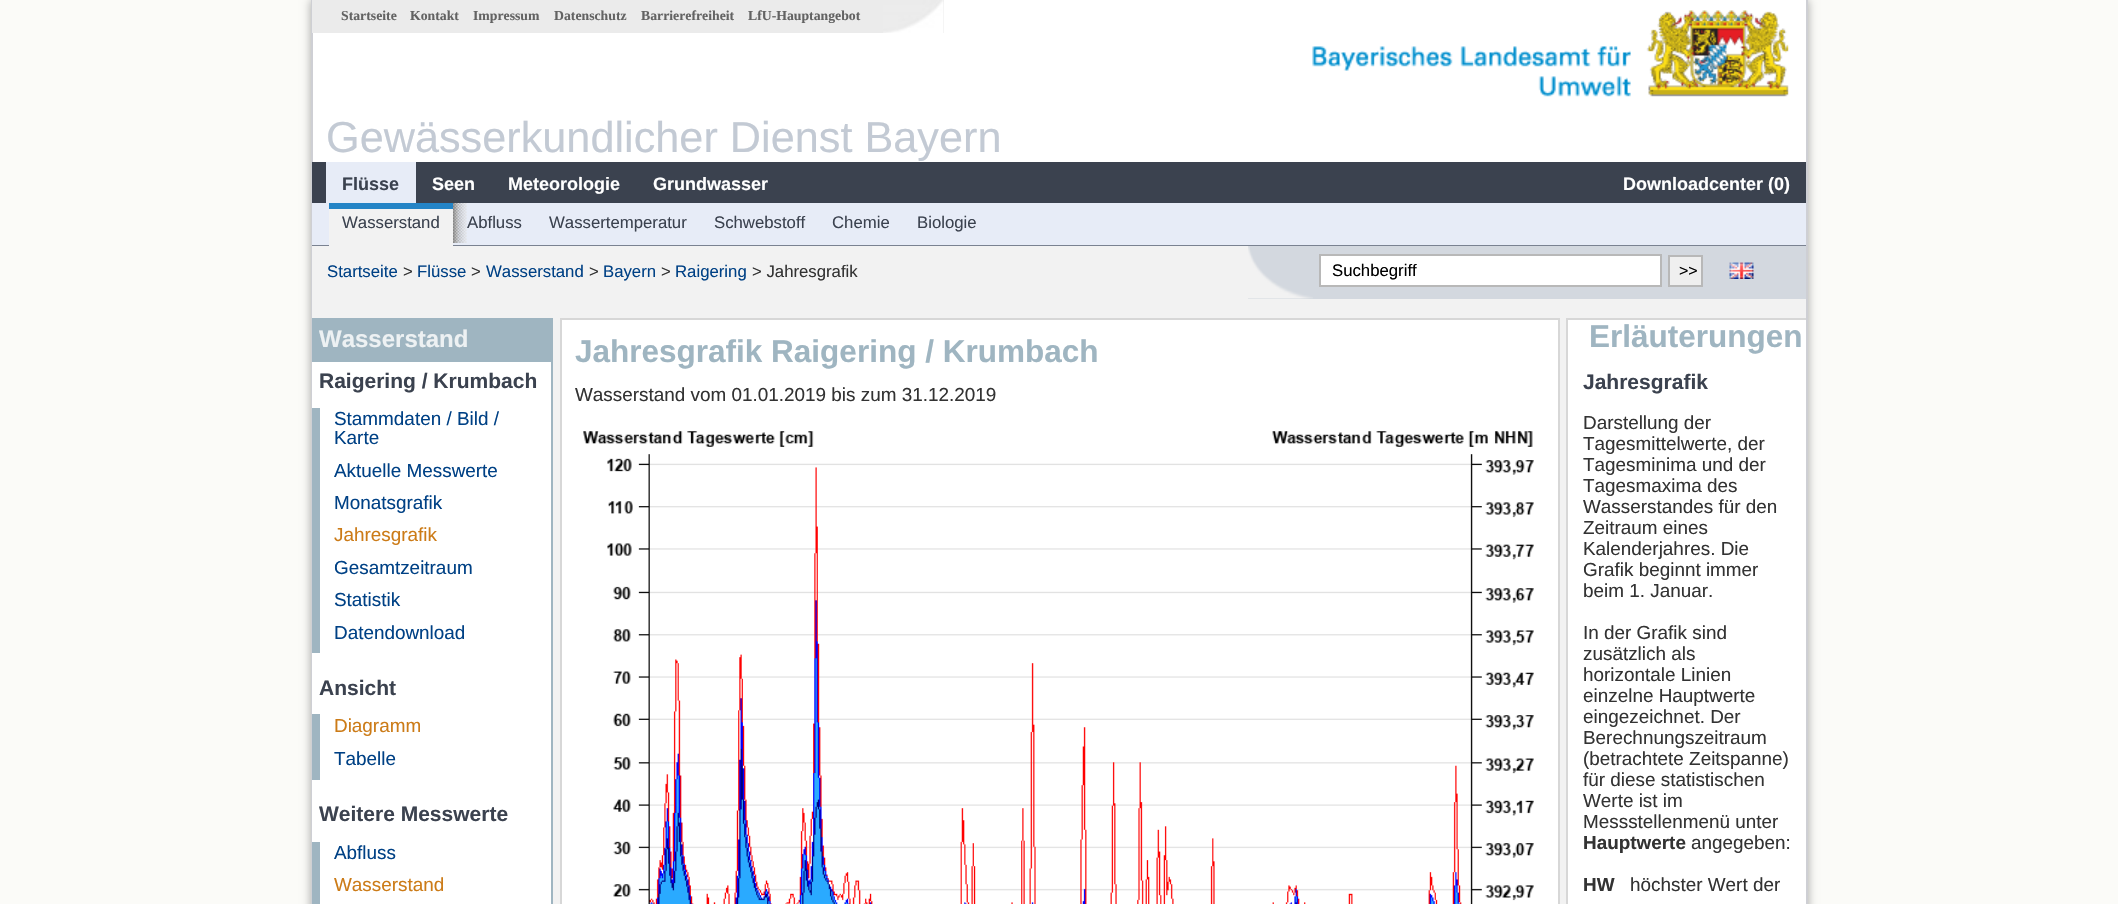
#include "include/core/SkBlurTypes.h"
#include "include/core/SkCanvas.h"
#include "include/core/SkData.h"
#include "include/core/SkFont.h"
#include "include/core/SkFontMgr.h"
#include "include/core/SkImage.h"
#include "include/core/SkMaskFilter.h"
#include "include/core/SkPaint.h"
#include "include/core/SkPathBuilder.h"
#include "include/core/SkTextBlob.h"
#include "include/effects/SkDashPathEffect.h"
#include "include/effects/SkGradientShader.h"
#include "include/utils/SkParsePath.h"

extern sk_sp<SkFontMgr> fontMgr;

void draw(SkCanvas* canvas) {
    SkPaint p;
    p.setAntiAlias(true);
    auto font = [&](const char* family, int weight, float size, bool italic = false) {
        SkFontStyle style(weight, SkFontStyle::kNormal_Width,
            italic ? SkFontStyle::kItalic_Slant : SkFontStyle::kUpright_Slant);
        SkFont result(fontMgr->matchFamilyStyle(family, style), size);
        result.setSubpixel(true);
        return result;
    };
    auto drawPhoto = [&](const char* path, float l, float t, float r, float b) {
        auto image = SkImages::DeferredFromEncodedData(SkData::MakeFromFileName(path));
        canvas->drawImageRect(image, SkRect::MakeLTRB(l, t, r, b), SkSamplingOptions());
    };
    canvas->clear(0xFFFBFBF8);
    p.setColor(0x59000000);
    p.setMaskFilter(SkMaskFilter::MakeBlur(kNormal_SkBlurStyle, 4.5f));
    canvas->drawRect(SkRect::MakeLTRB(311, 0, 1808, 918), p);
    p.setMaskFilter(nullptr);
    {
        const struct { float l, t, r, b; SkColor color; } items[] = {
            {313, 0, 1806, 162, 0xFFFFFFFF},
            {1806, 0, 1808, 904, 0xFFCECFD4},
            {311, 0, 313, 904, 0xFFCECFD4},
            {312, 0, 944, 33, 0xFFEBEBEB},
        };
        for (auto [l, t, r, b, color] : items) {
            p.setColor(color);
            canvas->drawRect(SkRect::MakeLTRB(l, t, r, b), p);
        }
    }
    drawPhoto("media/1.png", 883, 0, 944, 33);
    auto font1 = font("Liberation Serif", 700, 13.75f);
    p.setColor(0xFF636363);
    {
        const struct { const char* s; float x, y; } items[] = {
            {"Startseite", 341, 20},
            {"Kontakt", 410, 20},
            {"Impressum", 473, 20},
            {"Datenschutz", 554, 20},
            {"Barrierefreiheit", 641, 20},
            {"LfU-Hauptangebot", 748, 20},
        };
        for (auto [s, x, y] : items) {
            canvas->drawString(s, x, y, font1, p);
        }
    }
    drawPhoto("media/2.png", 1312, 10, 1789, 97);
    auto font2 = font("Liberation Sans", 400, 43.25f);
    p.setColor(0xFFC3CAD4);
    canvas->drawString("Gewässerkundlicher Dienst Bayern", 326, 152, font2, p);
    p.setColor(0xFF3B424F);
    canvas->drawRect(SkRect::MakeLTRB(312, 162, 1806, 203), p);
    p.setColor(0xFFE7ECF7);
    canvas->drawRect(SkRect::MakeLTRB(326, 162, 416, 203), p);
    auto font3 = font("Liberation Sans", 700, 18);
    p.setColor(0xFF3B424F);
    canvas->drawString("Flüsse", 342, 190, font3, p);
    p.setColor(0xFFFFFFFF);
    {
        const struct { const char* s; float x, y; } items[] = {
            {"Seen", 432, 190},
            {"Meteorologie", 508, 190},
            {"Grundwasser", 653, 190},
            {"Downloadcenter (0)", 1623, 190},
        };
        for (auto [s, x, y] : items) {
            canvas->drawString(s, x, y, font3, p);
        }
    }
    {
        const struct { float l, t, r, b; SkColor color; } items[] = {
            {312, 203, 1806, 245, 0xFFE7ECF7},
            {312, 245, 1806, 246, 0xFF7A8291},
            {329, 209, 453, 246, 0xFFF2F2F2},
            {329, 203, 453, 209, 0xFF2484C6},
        };
        for (auto [l, t, r, b, color] : items) {
            p.setColor(color);
            canvas->drawRect(SkRect::MakeLTRB(l, t, r, b), p);
        }
    }
    auto font4 = font("Liberation Sans", 400, 16.75f);
    p.setColor(0xFF3B424F);
    canvas->drawString("Wasserstand", 342, 228, font4, p);
    drawPhoto("media/3.png", 453, 203, 467, 243);
    {
        const struct { const char* s; float x, y; } items[] = {
            {"Abfluss", 467, 228},
            {"Wassertemperatur", 549, 228},
            {"Schwebstoff", 714, 228},
            {"Chemie", 832, 228},
            {"Biologie", 917, 228},
        };
        for (auto [s, x, y] : items) {
            canvas->drawString(s, x, y, font4, p);
        }
    }
    p.setColor(0xFFF2F2F2);
    canvas->drawRect(SkRect::MakeLTRB(312, 246, 1806, 904), p);
    p.setColor(0xFF004185);
    canvas->drawString("Startseite", 327, 277, font4, p);
    p.setColor(0xFF333333);
    canvas->drawString(">", 403, 277, font4, p);
    p.setColor(0xFF004185);
    canvas->drawString("Flüsse", 417, 277, font4, p);
    p.setColor(0xFF333333);
    canvas->drawString(">", 471, 277, font4, p);
    p.setColor(0xFF004185);
    canvas->drawString("Wasserstand", 486, 277, font4, p);
    p.setColor(0xFF333333);
    canvas->drawString(">", 589, 277, font4, p);
    p.setColor(0xFF004185);
    canvas->drawString("Bayern", 603, 277, font4, p);
    p.setColor(0xFF333333);
    canvas->drawString(">", 661, 277, font4, p);
    p.setColor(0xFF004185);
    canvas->drawString("Raigering", 675, 277, font4, p);
    p.setColor(0xFF333333);
    canvas->drawString("> Jahresgrafik", 752, 277, font4, p);
    p.setColor(0xFFD3D8DF);
    canvas->drawRect(SkRect::MakeLTRB(1248, 246, 1806, 299), p);
    drawPhoto("media/4.png", 1248, 246, 1313, 299);
    p.setColor(0xFFFFFFFF);
    canvas->drawRect(SkRect::MakeLTRB(1320, 255, 1661, 286), p);
    p.setStyle(SkPaint::kStroke_Style);
    p.setStrokeWidth(2);
    p.setColor(0xFFB8B8B8);
    canvas->drawRect(SkRect::MakeLTRB(1320, 255, 1661, 286), p);
    p.setStyle(SkPaint::kFill_Style);
    p.setColor(0xFF000000);
    canvas->drawString("Suchbegriff", 1332, 276, font4, p);
    p.setColor(0xFFEFEFEF);
    canvas->drawRect(SkRect::MakeLTRB(1669, 256, 1702, 286), p);
    p.setStyle(SkPaint::kStroke_Style);
    p.setColor(0xFFB8B8B8);
    canvas->drawRect(SkRect::MakeLTRB(1669, 256, 1702, 286), p);
    auto font5 = font("Liberation Sans", 400, 16);
    p.setStyle(SkPaint::kFill_Style);
    p.setColor(0xFF000000);
    canvas->drawString(">>", 1679, 276, font5, p);
    drawPhoto("media/5.png", 1729, 262, 1754, 279);
    {
        const struct { float l, t, r, b; SkColor color; } items[] = {
            {312, 362, 551, 904, 0xFFFFFFFF},
            {312, 318, 552, 320, 0xFF9FB5C1},
            {551, 318, 553, 904, 0xFF9FB5C1},
            {312, 320, 551, 362, 0xFF9FB5C1},
        };
        for (auto [l, t, r, b, color] : items) {
            p.setColor(color);
            canvas->drawRect(SkRect::MakeLTRB(l, t, r, b), p);
        }
    }
    auto font6 = font("Liberation Sans", 700, 24);
    p.setColor(0xFFEDF1F3);
    canvas->drawString("Wasserstand", 319, 347, font6, p);
    auto font7 = font("Liberation Sans", 700, 21);
    p.setColor(0xFF3B424F);
    canvas->drawString("Raigering / Krumbach", 319, 388, font7, p);
    p.setColor(0xFF9FB5C1);
    canvas->drawRect(SkRect::MakeLTRB(312, 408, 320, 653), p);
    auto font8 = font("Liberation Sans", 400, 18.9f);
    p.setColor(0xFF004185);
    {
        const struct { const char* s; float x, y; } items[] = {
            {"Stammdaten / Bild /", 334, 425},
            {"Karte", 334, 444},
            {"Aktuelle Messwerte", 334, 477},
            {"Monatsgrafik", 334, 509},
        };
        for (auto [s, x, y] : items) {
            canvas->drawString(s, x, y, font8, p);
        }
    }
    p.setColor(0xFFCC7B17);
    canvas->drawString("Jahresgrafik", 334, 541, font8, p);
    p.setColor(0xFF004185);
    {
        const struct { const char* s; float x, y; } items[] = {
            {"Gesamtzeitraum", 334, 574},
            {"Statistik", 334, 606},
            {"Datendownload", 334, 639},
        };
        for (auto [s, x, y] : items) {
            canvas->drawString(s, x, y, font8, p);
        }
    }
    p.setColor(0xFF3B424F);
    canvas->drawString("Ansicht", 319, 695, font7, p);
    p.setColor(0xFF9FB5C1);
    canvas->drawRect(SkRect::MakeLTRB(312, 714, 320, 780), p);
    p.setColor(0xFFCC7B17);
    canvas->drawString("Diagramm", 334, 732, font8, p);
    p.setColor(0xFF004185);
    canvas->drawString("Tabelle", 334, 765, font8, p);
    p.setColor(0xFF3B424F);
    canvas->drawString("Weitere Messwerte", 319, 821, font7, p);
    p.setColor(0xFF9FB5C1);
    canvas->drawRect(SkRect::MakeLTRB(312, 842, 320, 904), p);
    p.setColor(0xFF004185);
    canvas->drawString("Abfluss", 334, 859, font8, p);
    p.setColor(0xFFCC7B17);
    canvas->drawString("Wasserstand", 334, 891, font8, p);
    p.setColor(0xFFFFFFFF);
    canvas->drawRect(SkRect::MakeLTRB(561, 319, 1559, 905), p);
    p.setStyle(SkPaint::kStroke_Style);
    p.setColor(0xFFD7D7D7);
    canvas->drawRect(SkRect::MakeLTRB(561, 319, 1559, 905), p);
    auto font9 = font("Liberation Sans", 700, 31.5f);
    p.setStyle(SkPaint::kFill_Style);
    p.setColor(0xFF9FB5C1);
    canvas->drawString("Jahresgrafik Raigering / Krumbach", 575, 362, font9, p);
    p.setColor(0xFF333333);
    canvas->drawString("Wasserstand vom 01.01.2019 bis zum 31.12.2019", 575, 401, font8, p);
    drawPhoto("media/6.png", 583, 431, 1534, 904);
    {
        const struct { float l, t, r, b; SkColor color; } items[] = {
            {1568, 320, 1806, 904, 0xFFFFFFFF},
            {1566, 318, 1806, 320, 0xFFD7D7D7},
            {1566, 318, 1568, 904, 0xFFD7D7D7},
        };
        for (auto [l, t, r, b, color] : items) {
            p.setColor(color);
            canvas->drawRect(SkRect::MakeLTRB(l, t, r, b), p);
        }
    }
    p.setColor(0xFF9FB5C1);
    canvas->drawString("Erläuterungen", 1589, 347, font9, p);
    p.setColor(0xFF3B424F);
    canvas->drawString("Jahresgrafik", 1583, 389, font7, p);
    p.setColor(0xFF333333);
    {
        const struct { const char* s; float x, y; } items[] = {
            {"Darstellung der", 1583, 429},
            {"Tagesmittelwerte, der", 1583, 450},
            {"Tagesminima und der", 1583, 471},
            {"Tagesmaxima des", 1583, 492},
            {"Wasserstandes für den", 1583, 513},
            {"Zeitraum eines", 1583, 534},
            {"Kalenderjahres. Die", 1583, 555},
            {"Grafik beginnt immer", 1583, 576},
            {"beim 1. Januar.", 1583, 597},
            {"In der Grafik sind", 1583, 639},
            {"zusätzlich als", 1583, 660},
            {"horizontale Linien", 1583, 681},
            {"einzelne Hauptwerte", 1583, 702},
            {"eingezeichnet. Der", 1583, 723},
            {"Berechnungszeitraum", 1583, 744},
            {"(betrachtete Zeitspanne)", 1583, 765},
            {"für diese statistischen", 1583, 786},
            {"Werte ist im", 1583, 807},
            {"Messstellenmenü unter", 1583, 828},
        };
        for (auto [s, x, y] : items) {
            canvas->drawString(s, x, y, font8, p);
        }
    }
    auto font10 = font("Liberation Sans", 700, 18.9f);
    canvas->drawString("Hauptwerte", 1583, 849, font10, p);
    canvas->drawString("angegeben:", 1691, 849, font8, p);
    canvas->drawString("HW", 1583, 891, font10, p);
    canvas->drawString("höchster Wert der", 1630, 891, font8, p);
}
